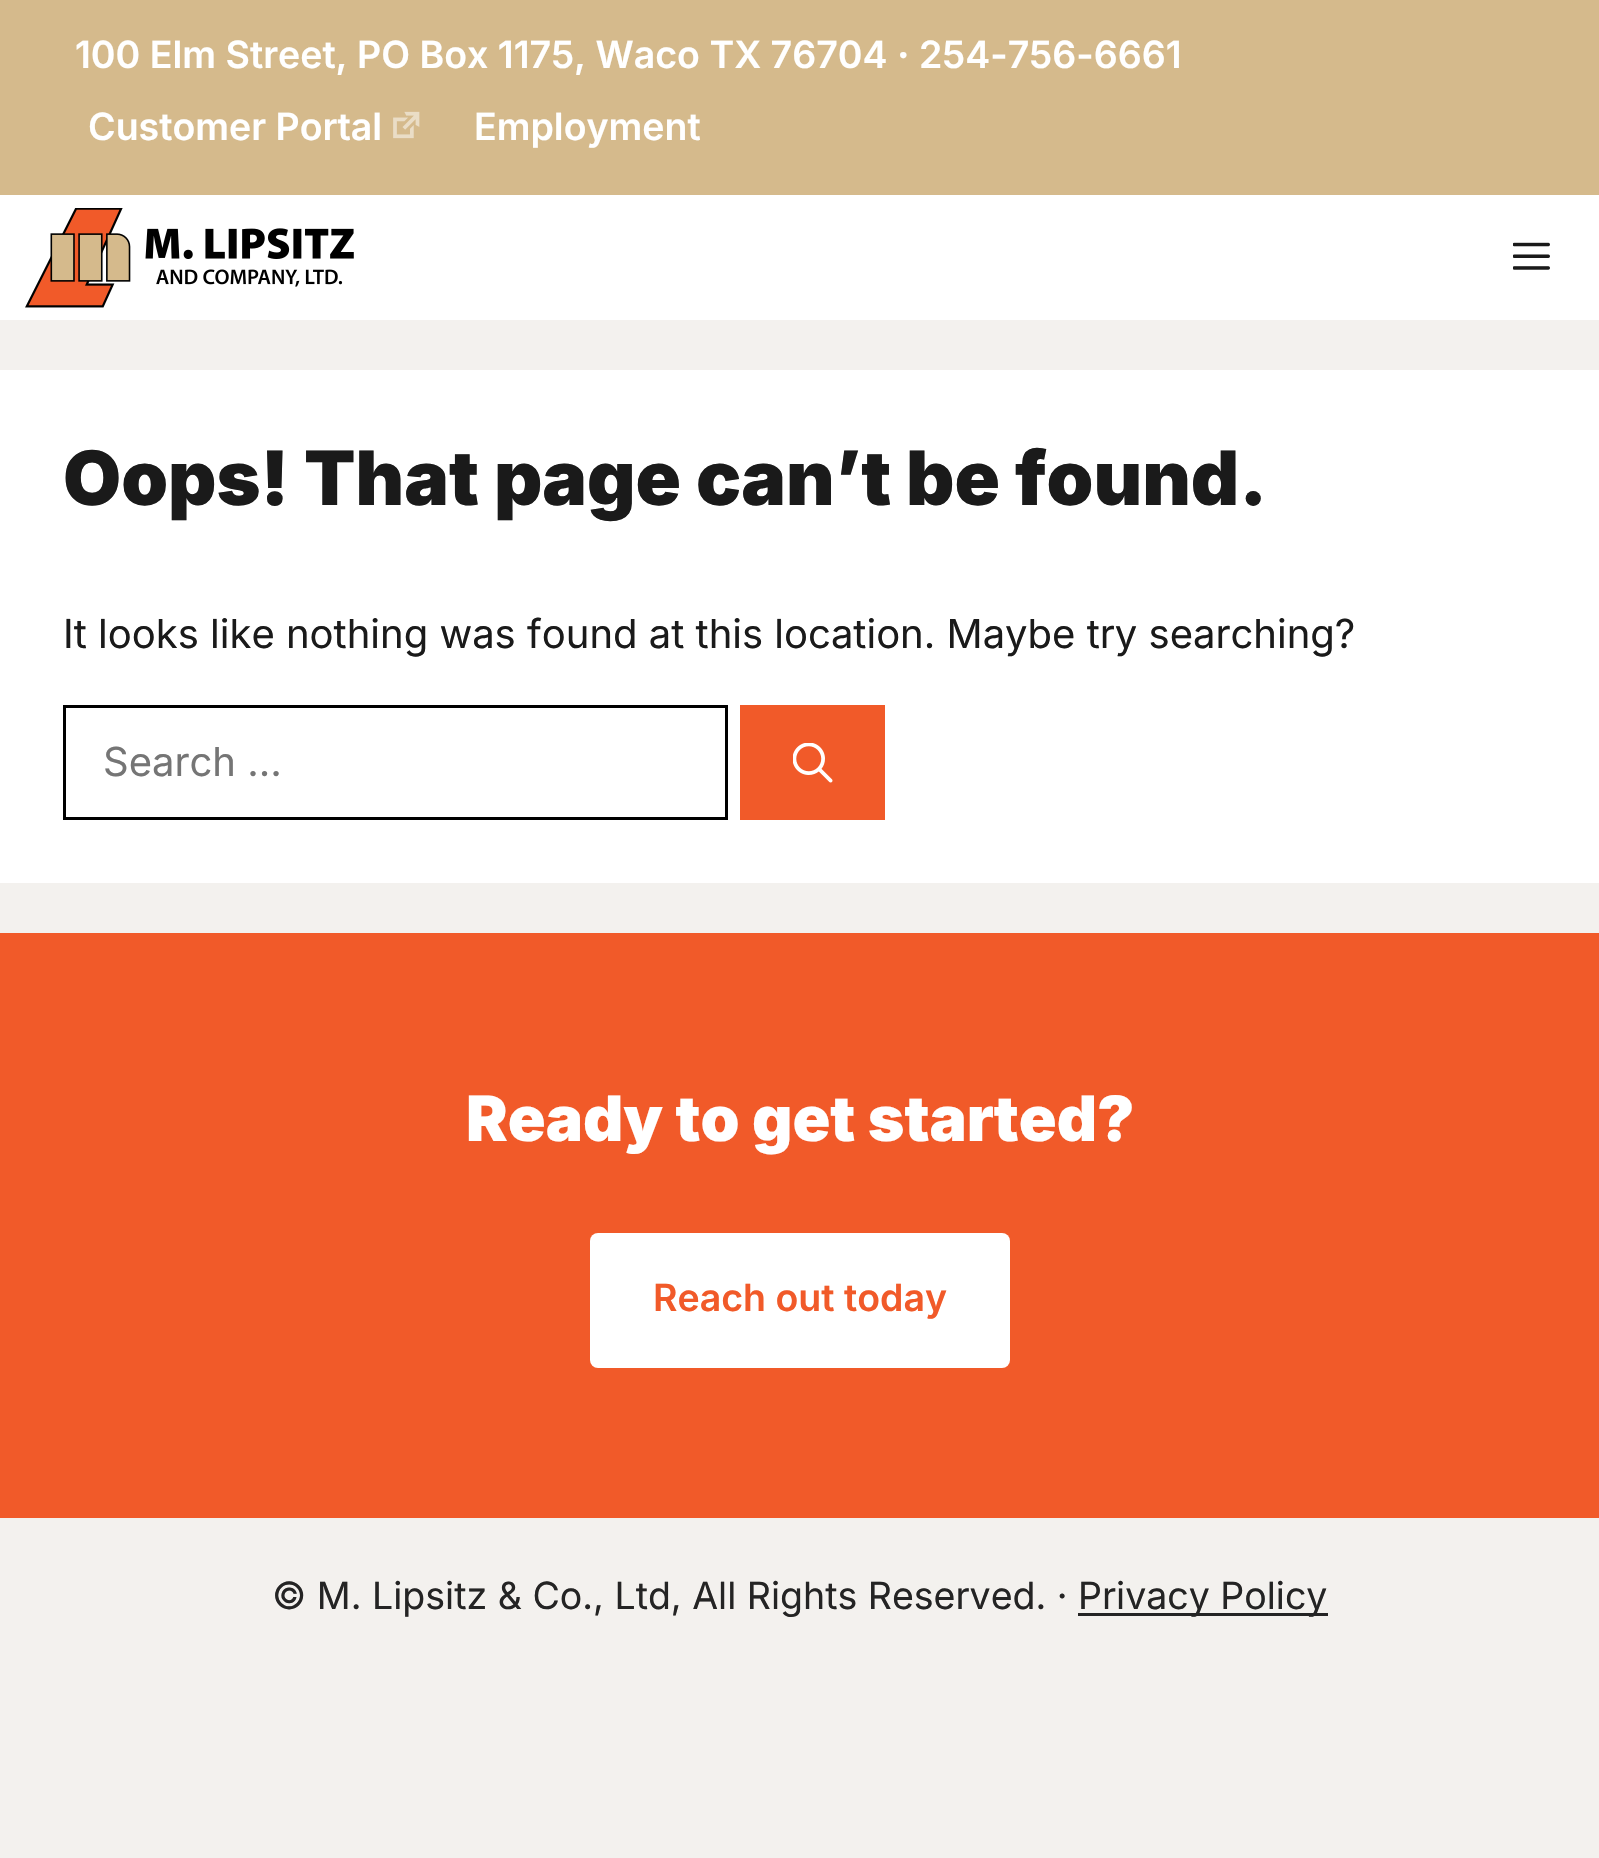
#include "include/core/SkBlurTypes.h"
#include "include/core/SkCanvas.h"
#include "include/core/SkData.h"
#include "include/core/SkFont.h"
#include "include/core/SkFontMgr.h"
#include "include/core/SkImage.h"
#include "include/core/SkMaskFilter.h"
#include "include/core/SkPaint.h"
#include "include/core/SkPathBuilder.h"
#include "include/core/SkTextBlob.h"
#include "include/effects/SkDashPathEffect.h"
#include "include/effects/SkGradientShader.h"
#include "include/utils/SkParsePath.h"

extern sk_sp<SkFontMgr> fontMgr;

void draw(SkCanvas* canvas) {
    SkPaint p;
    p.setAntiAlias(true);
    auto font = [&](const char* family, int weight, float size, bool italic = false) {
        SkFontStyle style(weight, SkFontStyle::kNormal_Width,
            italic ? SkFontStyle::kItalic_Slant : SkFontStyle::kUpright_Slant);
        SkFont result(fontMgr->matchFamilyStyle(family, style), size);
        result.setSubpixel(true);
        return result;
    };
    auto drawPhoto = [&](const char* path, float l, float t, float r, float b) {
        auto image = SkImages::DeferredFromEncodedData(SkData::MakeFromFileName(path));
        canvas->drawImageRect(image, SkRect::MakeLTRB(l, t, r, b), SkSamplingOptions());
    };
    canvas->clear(0xFFF3F1EE);
    p.setColor(0xFFD5BA8C);
    canvas->drawRect(SkRect::MakeLTRB(0, 0, 1599, 195), p);
    auto font1 = font("Inter", 600, 37.5f);
    p.setColor(0xFFFFFFFF);
    canvas->drawString("100 Elm Street, PO Box 1175, Waco TX 76704", 75, 68, font1, p);
    auto font2 = font("Inter", 700, 37.5f);
    canvas->drawString("·", 897, 68, font2, p);
    canvas->drawString("254-756-6661", 919, 68, font1, p);
    canvas->drawString("Customer Portal", 88, 140, font1, p);
    drawPhoto("media/1.png", 393, 111, 420, 139);
    canvas->drawString("Employment", 474, 140, font1, p);
    canvas->drawRect(SkRect::MakeLTRB(0, 195, 1599, 320), p);
    drawPhoto("media/2.png", 25, 208, 354, 308);
    drawPhoto("media/3.png", 1513, 242, 1550, 270);
    canvas->drawRect(SkRect::MakeLTRB(0, 370, 1599, 883), p);
    auto font3 = font("Inter", 900, 75);
    p.setColor(0xFF1A1A1A);
    canvas->drawString("Oops! That page can’t be found.", 63, 505, font3, p);
    auto font4 = font("Inter", 400, 40);
    canvas->drawString("It looks like nothing was found at this location. Maybe try searching?", 63, 648, font4, p);
    p.setStyle(SkPaint::kStroke_Style);
    p.setStrokeWidth(3);
    p.setColor(0xFF000000);
    canvas->drawRect(SkRect::MakeLTRB(64.5f, 706.5f, 726.5f, 818.5f), p);
    p.setStyle(SkPaint::kFill_Style);
    p.setColor(0xFF757575);
    canvas->drawString("Search …", 103, 776, font4, p);
    p.setColor(0xFFF15A29);
    canvas->drawRect(SkRect::MakeLTRB(740, 705, 885, 820), p);
    drawPhoto("media/4.png", 793, 743, 833, 783);
    canvas->drawRect(SkRect::MakeLTRB(0, 933, 1599, 1518), p);
    auto font5 = font("Inter", 900, 62.5f);
    p.setColor(0xFFFFFFFF);
    canvas->drawString("Ready to get started?", 466, 1141, font5, p);
    canvas->drawRoundRect(SkRect::MakeLTRB(590, 1233, 1010, 1368), 8, 8, p);
    p.setColor(0xFFF15A29);
    canvas->drawString("Reach out today", 653, 1311, font1, p);
    auto font6 = font("Inter", 400, 37.5f);
    p.setColor(0xFF242424);
    canvas->drawString("© M. Lipsitz & Co., Ltd, All Rights Reserved. ·", 272, 1609, font6, p);
    canvas->drawRect(SkRect::MakeLTRB(1078, 1613, 1328, 1616), p);
    canvas->drawString("Privacy Policy", 1078, 1609, font6, p);
}
